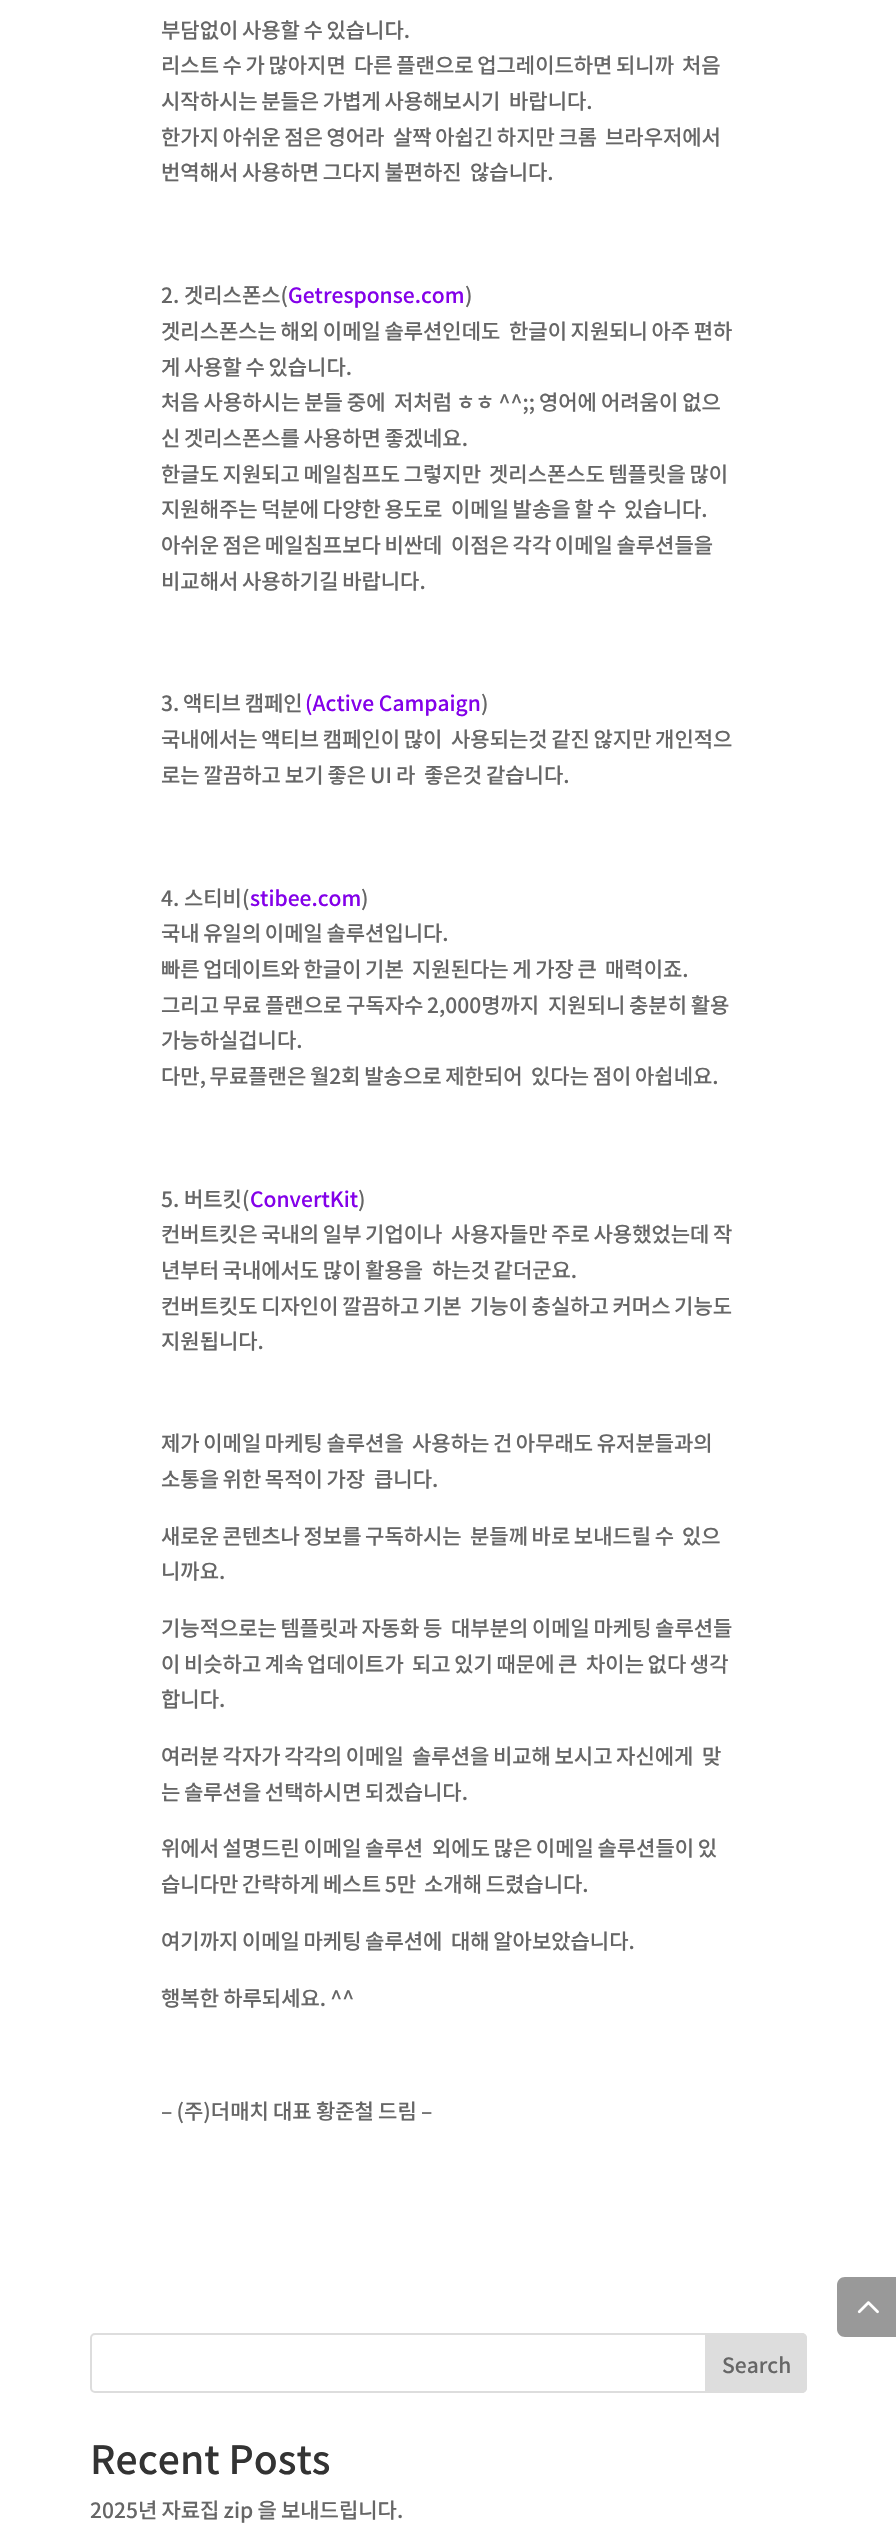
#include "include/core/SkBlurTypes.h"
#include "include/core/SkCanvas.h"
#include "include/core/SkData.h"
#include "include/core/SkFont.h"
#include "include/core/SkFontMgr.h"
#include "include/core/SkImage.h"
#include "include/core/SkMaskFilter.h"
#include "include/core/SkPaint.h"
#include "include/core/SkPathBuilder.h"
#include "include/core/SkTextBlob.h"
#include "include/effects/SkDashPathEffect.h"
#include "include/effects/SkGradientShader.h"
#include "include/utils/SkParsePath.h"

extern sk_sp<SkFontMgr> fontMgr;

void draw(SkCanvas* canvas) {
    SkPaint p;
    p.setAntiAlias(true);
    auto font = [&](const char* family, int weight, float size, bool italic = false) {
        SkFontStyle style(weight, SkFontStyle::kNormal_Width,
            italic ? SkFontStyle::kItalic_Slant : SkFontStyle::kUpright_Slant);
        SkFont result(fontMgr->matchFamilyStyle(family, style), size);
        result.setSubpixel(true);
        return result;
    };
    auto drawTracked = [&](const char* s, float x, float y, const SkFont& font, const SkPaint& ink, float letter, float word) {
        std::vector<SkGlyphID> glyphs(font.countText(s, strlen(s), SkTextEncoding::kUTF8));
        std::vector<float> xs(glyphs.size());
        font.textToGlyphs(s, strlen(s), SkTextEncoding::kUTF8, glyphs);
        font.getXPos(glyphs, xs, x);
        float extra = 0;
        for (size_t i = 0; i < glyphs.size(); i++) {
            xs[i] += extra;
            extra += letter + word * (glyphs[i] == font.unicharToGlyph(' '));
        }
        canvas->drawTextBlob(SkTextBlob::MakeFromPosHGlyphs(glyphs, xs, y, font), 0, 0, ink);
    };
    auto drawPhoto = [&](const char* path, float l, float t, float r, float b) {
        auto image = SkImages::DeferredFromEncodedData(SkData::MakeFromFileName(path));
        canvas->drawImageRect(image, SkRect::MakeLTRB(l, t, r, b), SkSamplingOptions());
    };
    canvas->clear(0xFFFFFFFF);
    auto font1 = font("Noto Sans KR", 100, 21);
    p.setColor(0xFF666666);
    {
        const struct { const char* s; float x, y; } items[] = {
            {"부담없이 사용할 수 있습니다.", 161, 38},
            {"리스트 수 가 많아지면", 161, 73},
            {"다른 플랜으로 업그레이드하면 되니까", 354, 73},
            {"처음", 682, 73},
            {"시작하시는 분들은 가볍게 사용해보시기", 161, 109},
            {"바랍니다.", 509, 109},
            {"한가지 아쉬운 점은 영어라", 161, 145},
            {"살짝 아쉽긴 하지만 크롬", 393, 145},
            {"브라우저에서", 605, 145},
            {"번역해서 사용하면 그다지 불편하진", 161, 180},
            {"않습니다.", 470, 180},
        };
        for (auto [s, x, y] : items) {
            drawTracked(s, x, y, font1, p, 0, -1.1f);
        }
    }
    canvas->drawString("2. 겟리스폰스(", 161, 303, font1, p);
    p.setColor(0xFF8300E9);
    canvas->drawString("Getresponse.com", 288, 303, font1, p);
    p.setColor(0xFF666666);
    canvas->drawString(")", 465, 303, font1, p);
    drawTracked("겟리스폰스는 해외 이메일 솔루션인데도", 161, 339, font1, p, 0, -1.1f);
    drawTracked("한글이 지원되니 아주 편하", 509, 339, font1, p, 0, -1.1f);
    drawTracked("게 사용할 수 있습니다.", 161, 375, font1, p, 0, -1.1f);
    drawTracked("처음 사용하시는 분들 중에", 161, 410, font1, p, 0, -0.75f);
    drawTracked("저처럼 ㅎㅎ ^^;; 영어에 어려움이 없으", 394, 410, font1, p, 0, -0.75f);
    {
        const struct { const char* s; float x, y; } items[] = {
            {"신 겟리스폰스를 사용하면 좋겠네요.", 161, 446},
            {"한글도 지원되고 메일침프도 그렇지만", 161, 482},
            {"겟리스폰스도 템플릿을 많이", 489, 482},
            {"지원해주는 덕분에 다양한 용도로", 161, 517},
            {"이메일 발송을 할 수", 451, 517},
            {"있습니다.", 624, 517},
            {"아쉬운 점은 메일침프보다 비싼데", 161, 553},
            {"이점은 각각 이메일 솔루션들을", 451, 553},
            {"비교해서 사용하기길 바랍니다.", 161, 589},
        };
        for (auto [s, x, y] : items) {
            drawTracked(s, x, y, font1, p, 0, -1.1f);
        }
    }
    drawTracked("3. 액티브 캠페인", 161, 711, font1, p, 0, -1);
    p.setColor(0xFF8300E9);
    canvas->drawString("(Active Campaign", 305, 711, font1, p);
    p.setColor(0xFF666666);
    canvas->drawString(")", 481, 711, font1, p);
    drawTracked("국내에서는 액티브 캠페인이 많이", 161, 747, font1, p, 0, -1.1f);
    drawTracked("사용되는것 같진 않지만 개인적으", 451, 747, font1, p, 0, -1.1f);
    drawTracked("로는 깔끔하고 보기 좋은 UI 라", 161, 783, font1, p, 0, -0.75f);
    drawTracked("좋은것 같습니다.", 424, 783, font1, p, 0, -0.75f);
    canvas->drawString("4. 스티비(", 161, 906, font1, p);
    p.setColor(0xFF8300E9);
    canvas->drawString("stibee.com", 250, 906, font1, p);
    p.setColor(0xFF666666);
    canvas->drawString(")", 361, 906, font1, p);
    drawTracked("국내 유일의 이메일 솔루션입니다.", 161, 941, font1, p, 0, -1.1f);
    drawTracked("빠른 업데이트와 한글이 기본", 161, 977, font1, p, 0, -1.1f);
    drawTracked("지원된다는 게 가장 큰", 412, 977, font1, p, 0, -1.1f);
    drawTracked("매력이죠.", 605, 977, font1, p, 0, -1.1f);
    drawTracked("그리고 무료 플랜으로 구독자수 2,000명까지", 161, 1013, font1, p, 0, -1);
    drawTracked("지원되니 충분히 활용", 548, 1013, font1, p, 0, -1);
    canvas->drawString("가능하실겁니다.", 161, 1048, font1, p);
    drawTracked("다만, 무료플랜은 월2회 발송으로 제한되어", 161, 1084, font1, p, 0, -1);
    drawTracked("있다는 점이 아쉽네요.", 531, 1084, font1, p, 0, -1);
    canvas->drawString("5. 버트킷(", 161, 1207, font1, p);
    p.setColor(0xFF8300E9);
    canvas->drawString("ConvertKit", 250, 1207, font1, p);
    p.setColor(0xFF666666);
    canvas->drawString(")", 358, 1207, font1, p);
    {
        const struct { const char* s; float x, y; } items[] = {
            {"컨버트킷은 국내의 일부 기업이나", 161, 1242},
            {"사용자들만 주로 사용했었는데 작", 451, 1242},
            {"년부터 국내에서도 많이 활용을", 161, 1278},
            {"하는것 같더군요.", 432, 1278},
            {"컨버트킷도 디자인이 깔끔하고 기본", 161, 1314},
            {"기능이 충실하고 커머스 기능도", 470, 1314},
        };
        for (auto [s, x, y] : items) {
            drawTracked(s, x, y, font1, p, 0, -1.1f);
        }
    }
    canvas->drawString("지원됩니다.", 161, 1349, font1, p);
    {
        const struct { const char* s; float x, y; } items[] = {
            {"제가 이메일 마케팅 솔루션을", 161, 1451},
            {"사용하는 건 아무래도 유저분들과의", 412, 1451},
            {"소통을 위한 목적이 가장", 161, 1487},
            {"큽니다.", 374, 1487},
            {"새로운 콘텐츠나 정보를 구독하시는", 161, 1544},
            {"분들께 바로 보내드릴 수", 470, 1544},
            {"있으", 682, 1544},
        };
        for (auto [s, x, y] : items) {
            drawTracked(s, x, y, font1, p, 0, -1.1f);
        }
    }
    canvas->drawString("니까요.", 161, 1579, font1, p);
    drawTracked("기능적으로는 템플릿과 자동화 등", 161, 1636, font1, p, 0, -1.1f);
    drawTracked("대부분의 이메일 마케팅 솔루션들", 451, 1636, font1, p, 0, -1.1f);
    drawTracked("이 비슷하고 계속 업데이트가", 161, 1672, font1, p, 0, -1.1f);
    drawTracked("되고 있기 때문에 큰", 412, 1672, font1, p, 0, -1.1f);
    drawTracked("차이는 없다 생각", 586, 1672, font1, p, 0, -1.1f);
    canvas->drawString("합니다.", 161, 1707, font1, p);
    {
        const struct { const char* s; float x, y; } items[] = {
            {"여러분 각자가 각각의 이메일", 161, 1764},
            {"솔루션을 비교해 보시고 자신에게", 412, 1764},
            {"맞", 702, 1764},
            {"는 솔루션을 선택하시면 되겠습니다.", 161, 1800},
            {"위에서 설명드린 이메일 솔루션", 161, 1856},
            {"외에도 많은 이메일 솔루션들이 있", 432, 1856},
        };
        for (auto [s, x, y] : items) {
            drawTracked(s, x, y, font1, p, 0, -1.1f);
        }
    }
    drawTracked("습니다만 간략하게 베스트 5만", 161, 1892, font1, p, 0, -1);
    drawTracked("소개해 드렸습니다.", 424, 1892, font1, p, 0, -1);
    drawTracked("여기까지 이메일 마케팅 솔루션에", 161, 1949, font1, p, 0, -1.1f);
    drawTracked("대해 알아보았습니다.", 451, 1949, font1, p, 0, -1.1f);
    drawTracked("행복한 하루되세요. ^^", 161, 2006, font1, p, 0, -0.5f);
    drawTracked("– (주)더매치 대표 황준철 드림 –", 161, 2119, font1, p, 0, -0.5f);
    p.setStyle(SkPaint::kStroke_Style);
    p.setStrokeWidth(2);
    p.setColor(0xFFDDDDDD);
    canvas->drawRoundRect(SkRect::MakeLTRB(91, 2334, 806, 2392), 4, 4, p);
    p.setStyle(SkPaint::kFill_Style);
    canvas->drawPath(SkPathBuilder().moveTo(706, 2334).lineTo(802, 2334).cubicTo(804, 2334, 806, 2336, 806, 2338).lineTo(806, 2388).cubicTo(806, 2390, 804, 2392, 802, 2392).lineTo(706, 2392).close().detach(), p);
    p.setStyle(SkPaint::kStroke_Style);
    canvas->drawPath(SkPathBuilder().moveTo(706, 2334).lineTo(802, 2334).cubicTo(804, 2334, 806, 2336, 806, 2338).lineTo(806, 2388).cubicTo(806, 2390, 804, 2392, 802, 2392).lineTo(706, 2392).close().detach(), p);
    p.setStyle(SkPaint::kFill_Style);
    p.setColor(0xFF666666);
    canvas->drawString("Search", 722, 2373, font1, p);
    auto font2 = font("Noto Sans KR", 100, 39);
    p.setColor(0xFF333333);
    canvas->drawString("Recent Posts", 90, 2474, font2, p);
    p.setColor(0xFF666666);
    drawTracked("2025년 자료집 zip 을 보내드립니다.", 90, 2518, font1, p, 0, -0.5f);
    p.setColor(0xFF999999);
    canvas->drawPath(SkPathBuilder().moveTo(845, 2277).lineTo(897, 2277).lineTo(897, 2337).lineTo(845, 2337).cubicTo(840.5f, 2337, 837, 2333.5f, 837, 2329).lineTo(837, 2285).cubicTo(837, 2280.5f, 840.5f, 2277, 845, 2277).close().detach(), p);
    drawPhoto("media/1.png", 857, 2301, 879, 2314);
}
